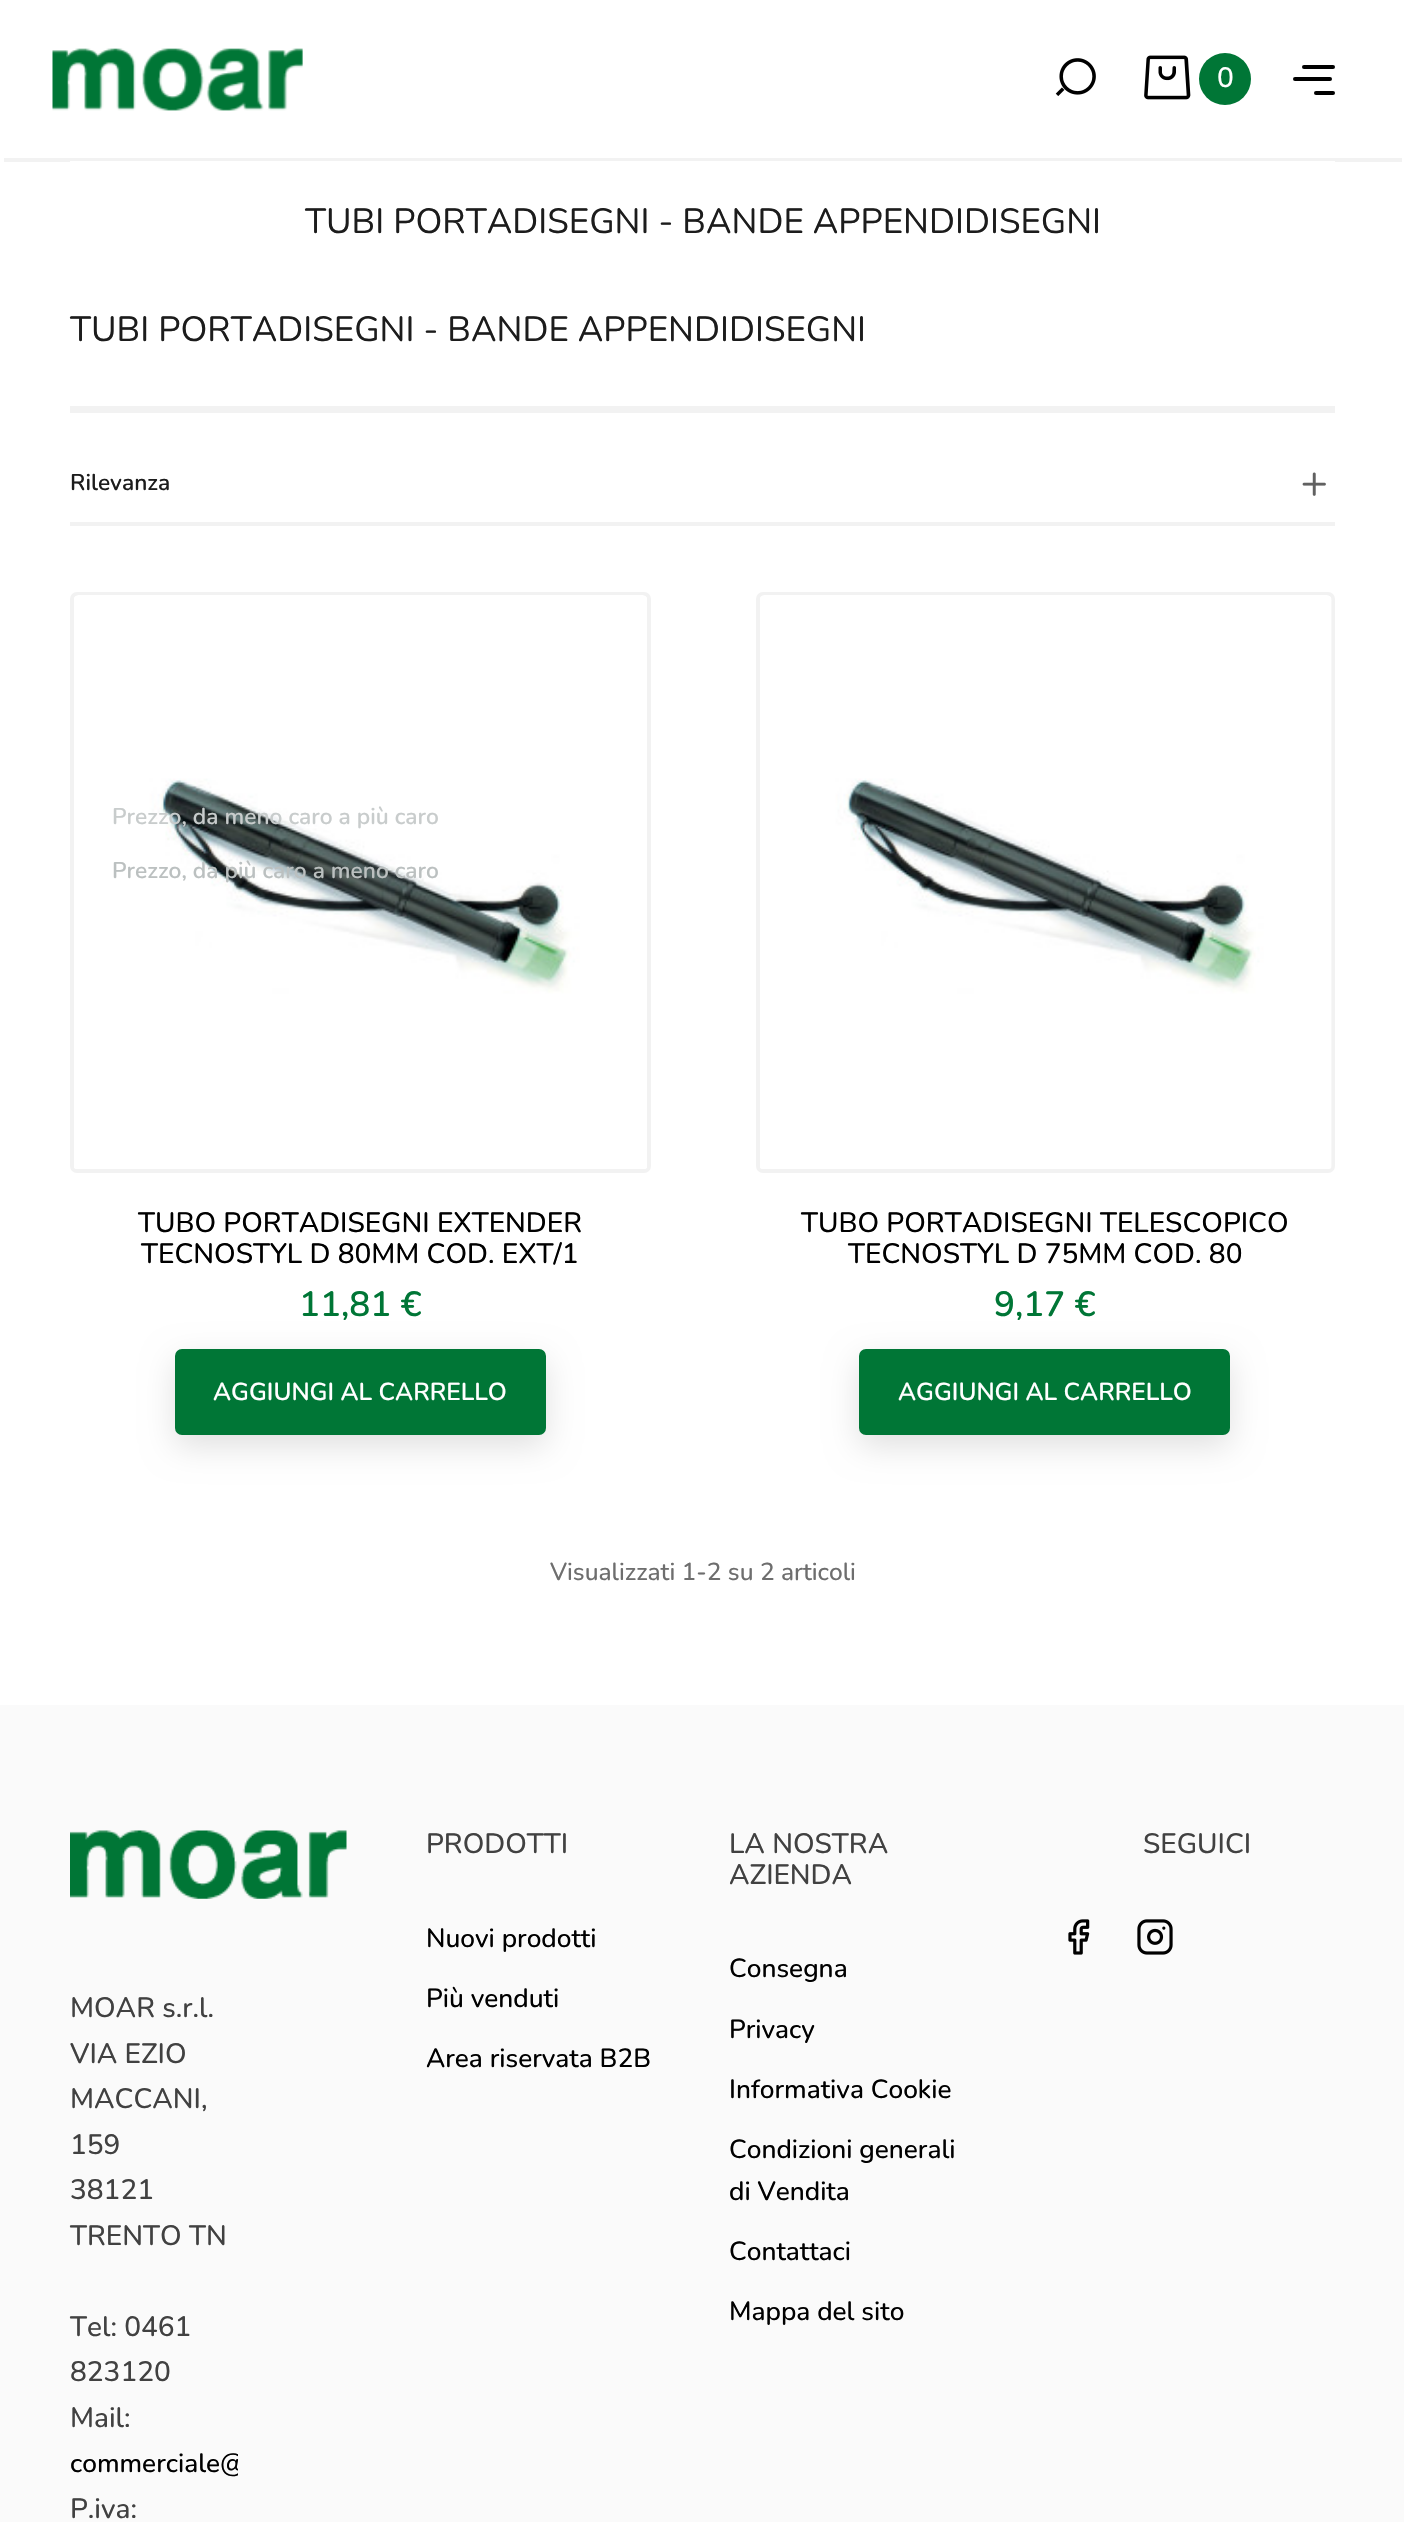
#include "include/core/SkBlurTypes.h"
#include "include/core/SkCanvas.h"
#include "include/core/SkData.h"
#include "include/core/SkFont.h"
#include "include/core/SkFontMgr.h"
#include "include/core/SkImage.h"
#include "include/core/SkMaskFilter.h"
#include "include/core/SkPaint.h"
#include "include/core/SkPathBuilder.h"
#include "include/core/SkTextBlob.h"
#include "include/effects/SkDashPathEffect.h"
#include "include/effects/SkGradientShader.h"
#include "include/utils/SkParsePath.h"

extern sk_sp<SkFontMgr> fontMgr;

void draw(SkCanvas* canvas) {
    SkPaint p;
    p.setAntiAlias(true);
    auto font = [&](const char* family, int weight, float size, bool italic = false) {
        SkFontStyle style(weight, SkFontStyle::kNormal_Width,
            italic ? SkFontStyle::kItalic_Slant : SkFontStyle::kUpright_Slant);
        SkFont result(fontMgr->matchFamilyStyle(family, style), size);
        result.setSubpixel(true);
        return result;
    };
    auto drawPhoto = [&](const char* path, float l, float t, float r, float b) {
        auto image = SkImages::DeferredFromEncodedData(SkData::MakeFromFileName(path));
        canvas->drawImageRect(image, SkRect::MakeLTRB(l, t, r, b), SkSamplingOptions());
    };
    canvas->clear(0xFFFFFFFF);
    drawPhoto("media/1.png", 52, 48, 303, 111);
    drawPhoto("media/2.png", 1055, 58, 1096, 96);
    drawPhoto("media/3.png", 1144, 55, 1191, 100);
    p.setColor(0xFF007636);
    canvas->drawCircle(1225, 79, 26, p);
    auto font1 = font("Nunito", 500, 28);
    p.setColor(0xFFFFFFFF);
    canvas->drawString("0", 1217, 87, font1, p);
    p.setColor(0xFF000000);
    canvas->drawRoundRect(SkRect::MakeLTRB(1302, 65, 1335, 69), 2, 2, p);
    canvas->drawRoundRect(SkRect::MakeLTRB(1293, 77, 1332, 81), 2, 2, p);
    canvas->drawRoundRect(SkRect::MakeLTRB(1314, 91, 1335, 95), 2, 2, p);
    p.setColor(0xFFF2F2F2);
    canvas->drawRect(SkRect::MakeLTRB(4, 158, 1402, 162), p);
    p.setColor(0xFFFFFFFF);
    canvas->drawRect(SkRect::MakeLTRB(70, 161, 1335, 162), p);
    auto font2 = font("Nunito", 400, 35);
    p.setColor(0xFF1C1C1C);
    canvas->drawString("TUBI PORTADISEGNI - BANDE APPENDIDISEGNI", 305, 233, font2, p);
    canvas->drawString("TUBI PORTADISEGNI - BANDE APPENDIDISEGNI", 70, 341, font2, p);
    p.setColor(0xFFF2F2F2);
    canvas->drawRect(SkRect::MakeLTRB(70, 406, 1335, 413), p);
    auto font3 = font("Nunito", 600, 22.75f);
    p.setColor(0xFF1C1C1C);
    canvas->drawString("Rilevanza", 70, 490, font3, p);
    drawPhoto("media/4.png", 1302, 472, 1326, 496);
    p.setColor(0xFFF2F2F2);
    canvas->drawRect(SkRect::MakeLTRB(70, 522, 1335, 526), p);
    p.setStyle(SkPaint::kStroke_Style);
    p.setStrokeWidth(4);
    canvas->drawRoundRect(SkRect::MakeLTRB(72, 594, 649, 1171), 5, 5, p);
    drawPhoto("media/5.png", 74, 595, 647, 1169);
    p.setStyle(SkPaint::kFill_Style);
    p.setColor(0xFFC8CCCC);
    canvas->drawString("Prezzo, da meno caro a più caro", 112, 824, font3, p);
    p.setColor(0xFFBBC0C0);
    canvas->drawString("Prezzo, da più caro a meno caro", 112, 878, font3, p);
    p.setColor(0xFF000000);
    canvas->drawString("TUBO PORTADISEGNI EXTENDER", 138, 1232, font1, p);
    canvas->drawString("TECNOSTYL D 80MM COD. EXT/1", 141, 1263, font1, p);
    auto font4 = font("Nunito", 600, 35);
    p.setColor(0xFF007636);
    canvas->drawString("11,81 €", 299, 1316, font4, p);
    p.setColor(0x1F000000);
    p.setMaskFilter(SkMaskFilter::MakeBlur(kNormal_SkBlurStyle, 16));
    canvas->drawRoundRect(SkRect::MakeLTRB(175, 1360, 546, 1446), 7, 7, p);
    p.setMaskFilter(nullptr);
    p.setColor(0xFF007636);
    canvas->drawRoundRect(SkRect::MakeLTRB(177, 1351, 544, 1433), 5, 5, p);
    p.setStyle(SkPaint::kStroke_Style);
    canvas->drawRoundRect(SkRect::MakeLTRB(177, 1351, 544, 1433), 5, 5, p);
    auto font5 = font("Nunito", 600, 24.5f);
    p.setStyle(SkPaint::kFill_Style);
    p.setColor(0xFFFFFFFF);
    canvas->drawString("AGGIUNGI AL CARRELLO", 213, 1400, font5, p);
    p.setStyle(SkPaint::kStroke_Style);
    p.setColor(0xFFF2F2F2);
    canvas->drawRoundRect(SkRect::MakeLTRB(758, 594, 1333, 1171), 5, 5, p);
    drawPhoto("media/6.png", 760, 595, 1332, 1169);
    p.setStyle(SkPaint::kFill_Style);
    p.setColor(0xFF000000);
    canvas->drawString("TUBO PORTADISEGNI TELESCOPICO", 801, 1232, font1, p);
    canvas->drawString("TECNOSTYL D 75MM COD. 80", 848, 1263, font1, p);
    p.setColor(0xFF007636);
    canvas->drawString("9,17 €", 994, 1316, font4, p);
    p.setColor(0x1F000000);
    p.setMaskFilter(SkMaskFilter::MakeBlur(kNormal_SkBlurStyle, 16));
    canvas->drawRoundRect(SkRect::MakeLTRB(859, 1360, 1230, 1446), 7, 7, p);
    p.setMaskFilter(nullptr);
    p.setColor(0xFF007636);
    canvas->drawRoundRect(SkRect::MakeLTRB(861, 1351, 1228, 1433), 5, 5, p);
    p.setStyle(SkPaint::kStroke_Style);
    canvas->drawRoundRect(SkRect::MakeLTRB(861, 1351, 1228, 1433), 5, 5, p);
    p.setStyle(SkPaint::kFill_Style);
    p.setColor(0xFFFFFFFF);
    canvas->drawString("AGGIUNGI AL CARRELLO", 898, 1400, font5, p);
    auto font6 = font("Nunito", 500, 24.5f);
    p.setColor(0xFF6E6E6E);
    canvas->drawString("Visualizzati 1-2 su 2 articoli", 550, 1580, font6, p);
    p.setColor(0xFFFAFAFA);
    canvas->drawRect(SkRect::MakeLTRB(0, 1705, 1404, 2522), p);
    p.setColor(0xFF414141);
    canvas->drawString("PRODOTTI", 426, 1853, font1, p);
    auto font7 = font("Nunito", 500, 26.25f);
    p.setColor(0xFF000000);
    {
        const struct { const char* s; float x, y; } items[] = {
            {"Nuovi prodotti", 426, 1947},
            {"Più venduti", 426, 2007},
            {"Area riservata B2B", 426, 2067},
        };
        for (auto [s, x, y] : items) {
            canvas->drawString(s, x, y, font7, p);
        }
    }
    p.setColor(0xFF414141);
    canvas->drawString("LA NOSTRA", 729, 1853, font1, p);
    canvas->drawString("AZIENDA", 729, 1884, font1, p);
    p.setColor(0xFF000000);
    {
        const struct { const char* s; float x, y; } items[] = {
            {"Consegna", 729, 1977},
            {"Privacy", 729, 2038},
            {"Informativa Cookie", 729, 2098},
            {"Condizioni generali", 729, 2158},
            {"di Vendita", 729, 2200},
            {"Contattaci", 729, 2260},
            {"Mappa del sito", 729, 2320},
        };
        for (auto [s, x, y] : items) {
            canvas->drawString(s, x, y, font7, p);
        }
    }
    p.setColor(0xFF414141);
    canvas->drawString("SEGUICI", 1143, 1853, font1, p);
    drawPhoto("media/7.png", 1068, 1919, 1090, 1955);
    drawPhoto("media/8.png", 1137, 1919, 1173, 1955);
    drawPhoto("media/9.png", 70, 1830, 347, 1899);
    {
        const struct { const char* s; float x, y; } items[] = {
            {"MOAR s.r.l.", 70, 2017},
            {"VIA EZIO", 70, 2063},
            {"MACCANI,", 70, 2108},
            {"159", 70, 2154},
            {"38121", 70, 2199},
            {"TRENTO TN", 70, 2245},
            {"Tel: 0461", 70, 2336},
            {"823120", 70, 2381},
            {"Mail:", 70, 2427},
        };
        for (auto [s, x, y] : items) {
            canvas->drawString(s, x, y, font1, p);
        }
    }
    canvas->save();
    canvas->clipRect(SkRect::MakeLTRB(70, 1986, 238, 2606));
    p.setColor(0xFF000000);
    canvas->drawString("commerciale@", 70, 2472, font7, p);
    canvas->restore();
    p.setColor(0xFF414141);
    canvas->drawString("P.iva:", 70, 2518, font1, p);
}
